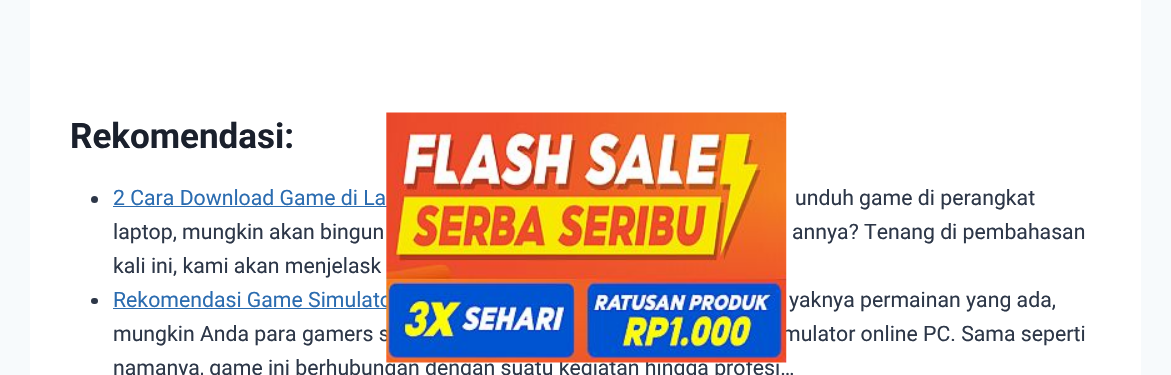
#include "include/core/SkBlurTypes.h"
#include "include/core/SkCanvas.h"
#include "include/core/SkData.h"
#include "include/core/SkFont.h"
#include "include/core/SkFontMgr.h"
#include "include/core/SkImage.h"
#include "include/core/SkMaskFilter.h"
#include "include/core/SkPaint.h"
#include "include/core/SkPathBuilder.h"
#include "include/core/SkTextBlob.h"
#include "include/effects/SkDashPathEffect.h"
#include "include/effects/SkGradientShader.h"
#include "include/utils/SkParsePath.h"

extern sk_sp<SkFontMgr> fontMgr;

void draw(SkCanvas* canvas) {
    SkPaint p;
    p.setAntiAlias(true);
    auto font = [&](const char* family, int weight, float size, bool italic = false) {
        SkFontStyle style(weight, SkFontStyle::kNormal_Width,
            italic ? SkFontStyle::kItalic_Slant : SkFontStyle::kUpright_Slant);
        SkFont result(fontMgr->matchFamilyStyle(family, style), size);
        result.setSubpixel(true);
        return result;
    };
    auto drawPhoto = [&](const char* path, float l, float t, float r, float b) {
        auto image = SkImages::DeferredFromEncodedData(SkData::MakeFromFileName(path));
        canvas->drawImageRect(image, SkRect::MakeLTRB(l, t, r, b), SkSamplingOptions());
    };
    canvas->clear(0xFFF7FAFC);
    p.setColor(0xFFFFFFFF);
    canvas->drawRect(SkRect::MakeLTRB(30, 0, 1141, 375), p);
    p.setColor(0xFF2B6CB0);
    canvas->drawRect(SkRect::MakeLTRB(113, 206, 387, 207), p);
    auto font1 = font("Roboto", 400, 21.25f);
    canvas->drawString("Rekomendasi Game Simulato", 113, 307, font1, p);
    canvas->drawRect(SkRect::MakeLTRB(113, 308, 387, 309), p);
    p.setColor(0xFF2D3748);
    {
        const struct { const char* s; float x, y; } items[] = {
            {"mungkin Anda para gamers s", 113, 341},
            {"mulator online PC. Sama seperti", 782, 341},
            {"namanya, game ini berhubungan dengan suatu kegiatan hingga profesi…", 113, 375},
        };
        for (auto [s, x, y] : items) {
            canvas->drawString(s, x, y, font1, p);
        }
    }
    drawPhoto("media/1.png", 386, 112, 787, 363);
    auto font2 = font("Roboto", 700, 35);
    p.setColor(0xFF1A202C);
    canvas->drawString("Rekomendasi:", 70, 148, font2, p);
    p.setColor(0xFF2D3748);
    canvas->drawCircle(94.5f, 199.5f, 3.5f, p);
    p.setColor(0xFF2B6CB0);
    canvas->drawString("2 Cara Download Game di La", 113, 205, font1, p);
    p.setColor(0xFF2D3748);
    {
        const struct { const char* s; float x, y; } items[] = {
            {"unduh game di perangkat", 795, 205},
            {"laptop, mungkin akan bingun", 113, 239},
            {"annya? Tenang di pembahasan", 792, 239},
            {"kali ini, kami akan menjelask", 113, 273},
        };
        for (auto [s, x, y] : items) {
            canvas->drawString(s, x, y, font1, p);
        }
    }
    canvas->drawRoundRect(SkRect::MakeLTRB(91, 298, 98, 304), 3, 3, p);
    canvas->drawString("yaknya permainan yang ada,", 789, 307, font1, p);
}
